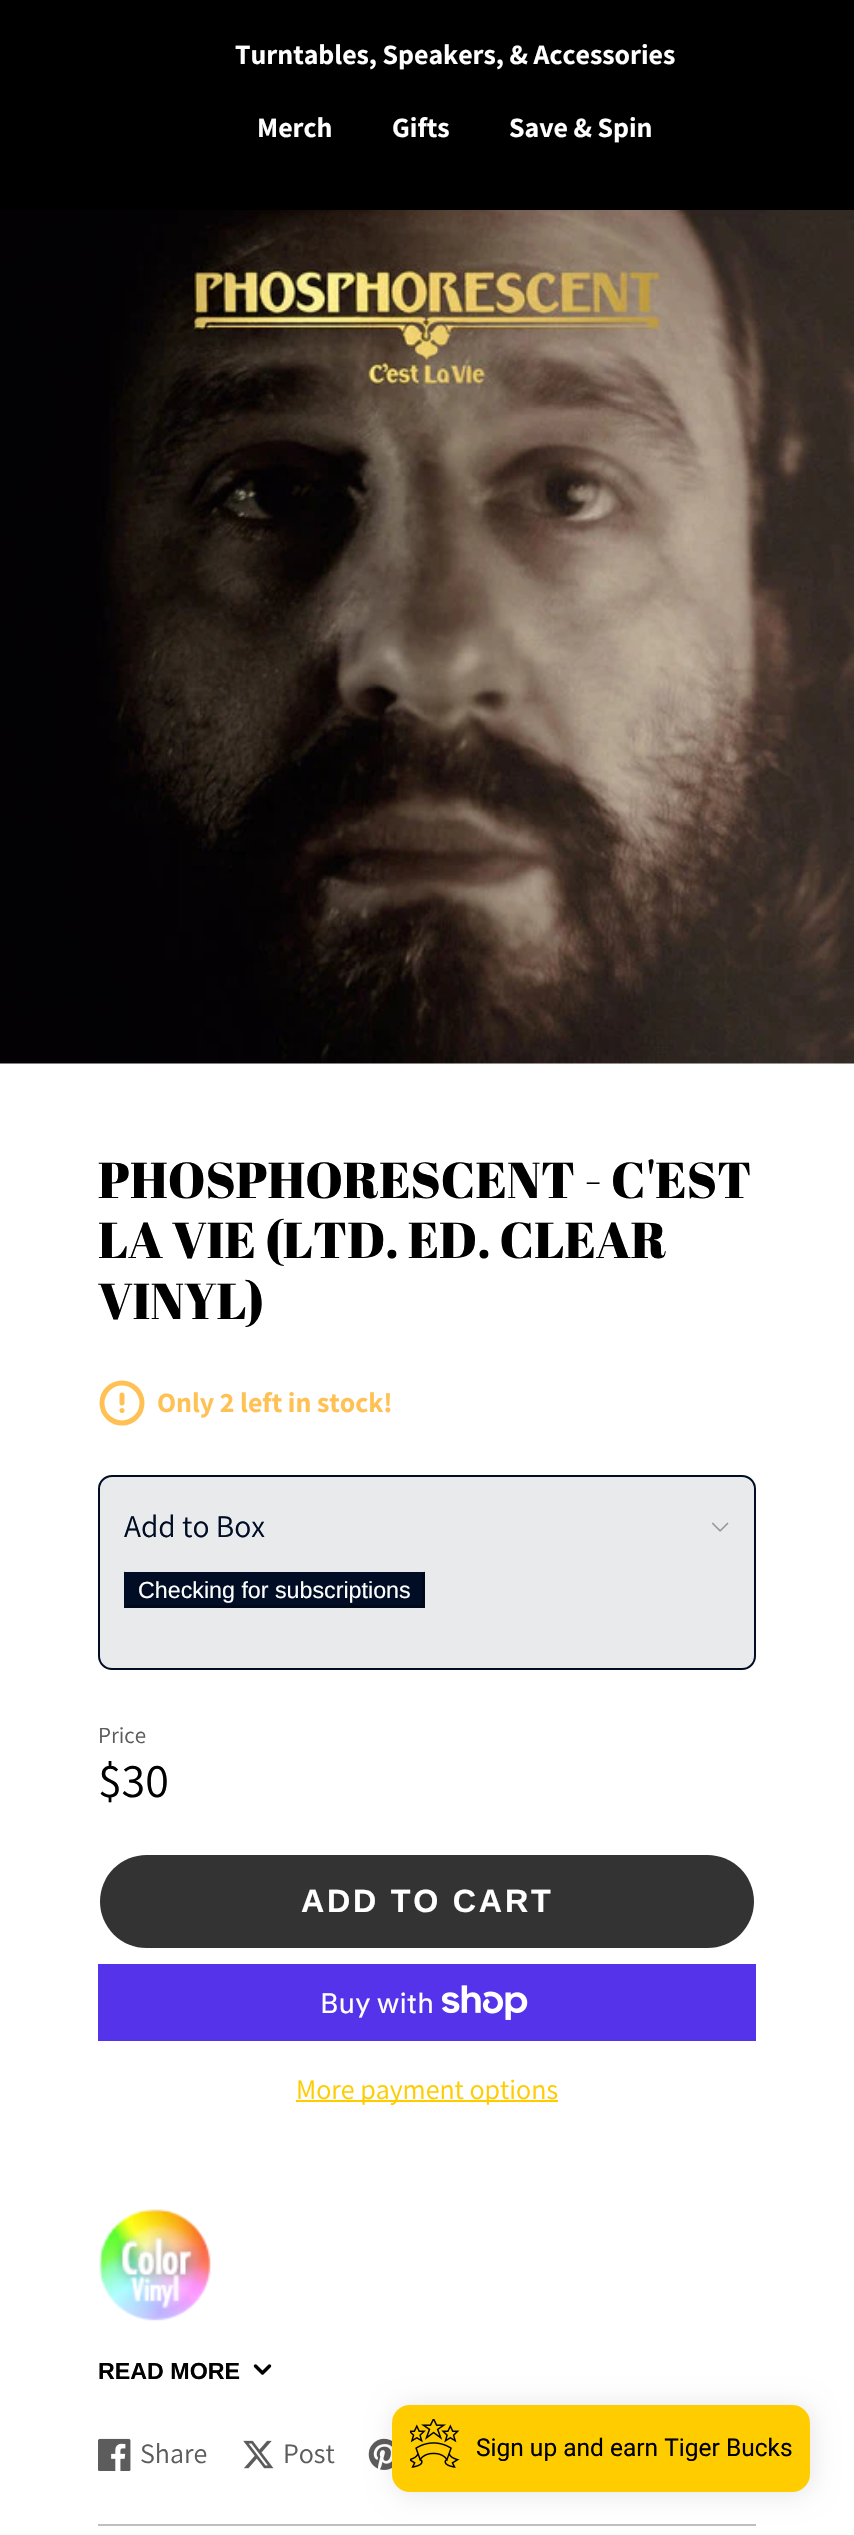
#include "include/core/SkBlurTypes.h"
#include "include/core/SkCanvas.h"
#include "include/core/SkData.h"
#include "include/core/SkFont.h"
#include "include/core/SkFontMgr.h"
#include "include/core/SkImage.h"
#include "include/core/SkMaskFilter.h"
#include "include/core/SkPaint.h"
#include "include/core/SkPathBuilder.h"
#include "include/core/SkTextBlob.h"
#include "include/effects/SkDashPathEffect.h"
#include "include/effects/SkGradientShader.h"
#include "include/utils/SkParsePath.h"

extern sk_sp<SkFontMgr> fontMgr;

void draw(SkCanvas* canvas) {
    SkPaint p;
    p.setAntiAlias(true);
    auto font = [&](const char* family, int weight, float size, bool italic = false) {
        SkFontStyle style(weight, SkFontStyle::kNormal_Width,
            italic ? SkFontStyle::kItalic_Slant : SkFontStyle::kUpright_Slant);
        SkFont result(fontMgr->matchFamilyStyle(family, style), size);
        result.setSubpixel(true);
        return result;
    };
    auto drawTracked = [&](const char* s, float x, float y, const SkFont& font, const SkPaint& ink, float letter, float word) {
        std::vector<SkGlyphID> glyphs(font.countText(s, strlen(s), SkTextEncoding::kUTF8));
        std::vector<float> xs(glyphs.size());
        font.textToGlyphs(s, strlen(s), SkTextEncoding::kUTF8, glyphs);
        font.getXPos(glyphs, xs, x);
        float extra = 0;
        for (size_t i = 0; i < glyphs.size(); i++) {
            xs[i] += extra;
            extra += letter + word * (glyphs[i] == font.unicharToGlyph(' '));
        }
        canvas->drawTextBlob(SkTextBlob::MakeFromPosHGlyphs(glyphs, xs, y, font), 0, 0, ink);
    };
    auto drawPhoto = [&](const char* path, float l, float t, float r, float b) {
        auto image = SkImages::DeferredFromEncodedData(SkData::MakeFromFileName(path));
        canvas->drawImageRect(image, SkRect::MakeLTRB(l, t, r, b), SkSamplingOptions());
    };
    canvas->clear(0xFFFFFFFF);
    p.setColor(0xFF000000);
    canvas->drawRect(SkRect::MakeLTRB(0, 0, 854, 210), p);
    auto font1 = font("Assistant", 700, 28);
    p.setColor(0xFFFFFFFF);
    {
        const struct { const char* s; float x, y; } items[] = {
            {"Turntables, Speakers, & Accessories", 235, 64},
            {"Merch", 257, 137},
            {"Gifts", 392, 137},
            {"Save & Spin", 509, 137},
        };
        for (auto [s, x, y] : items) {
            canvas->drawString(s, x, y, font1, p);
        }
    }
    drawPhoto("media/1.png", 0, 210, 854, 1064);
    auto font2 = font("Abril Fatface", 400, 50.4f);
    p.setColor(0xFF000000);
    {
        const struct { const char* s; float x, y; } items[] = {
            {"PHOSPHORESCENT - C'EST", 98, 1198},
            {"LA VIE (LTD. ED. CLEAR", 98, 1258},
            {"VINYL)", 98, 1319},
        };
        for (auto [s, x, y] : items) {
            canvas->drawString(s, x, y, font2, p);
        }
    }
    p.setStyle(SkPaint::kStroke_Style);
    p.setStrokeWidth(5);
    p.setColor(0xFFFFC154);
    canvas->drawCircle(122, 1403, 20, p);
    p.setStrokeCap(SkPaint::kRound_Cap);
    p.setStrokeJoin(SkPaint::kRound_Join);
    canvas->drawPath(SkPathBuilder().moveTo(122, 1395).lineTo(122, 1403).moveTo(122, 1410.5f).lineTo(122, 1410.5f).detach(), p);
    p.setStyle(SkPaint::kFill_Style);
    canvas->drawString("Only 2 left in stock!", 157, 1412, font1, p);
    p.setColor(0xFFE9EAEC);
    canvas->drawRoundRect(SkRect::MakeLTRB(99, 1476, 755, 1669), 13, 13, p);
    p.setStyle(SkPaint::kStroke_Style);
    p.setStrokeWidth(2);
    p.setStrokeCap(SkPaint::kButt_Cap);
    p.setStrokeJoin(SkPaint::kMiter_Join);
    p.setColor(0xFF000D24);
    canvas->drawRoundRect(SkRect::MakeLTRB(99, 1476, 755, 1669), 13, 13, p);
    auto font3 = font("Assistant", 400, 31.5f);
    p.setStyle(SkPaint::kFill_Style);
    canvas->drawString("Add to Box", 124, 1537, font3, p);
    drawPhoto("media/2.png", 711, 1522, 729, 1532);
    canvas->drawRect(SkRect::MakeLTRB(124, 1572, 425, 1608), p);
    p.setColor(0xFF000918);
    canvas->drawPath(SkPathBuilder().moveTo(425, 1571.5f).lineTo(425, 1608).lineTo(422, 1605).lineTo(422, 1575).close().detach(), p);
    canvas->drawPath(SkPathBuilder().moveTo(425, 1608).lineTo(124, 1608).lineTo(128, 1605).lineTo(422, 1605).close().detach(), p);
    p.setColor(0xFF000D24);
    canvas->drawPath(SkPathBuilder().moveTo(124, 1608).lineTo(124, 1571.5f).lineTo(128, 1575).lineTo(128, 1605).close().detach(), p);
    auto font4 = font("Liberation Sans", 400, 23.25f);
    p.setColor(0xFFFFFFFF);
    canvas->drawString("Checking for subscriptions", 138, 1598, font4, p);
    auto font5 = font("Assistant", 400, 23);
    p.setColor(0xFF5C5C5C);
    canvas->drawString("Price", 98, 1743, font5, p);
    auto font6 = font("Assistant", 400, 48);
    p.setColor(0xFF000000);
    canvas->drawString("$30", 98, 1797, font6, p);
    p.setColor(0xFF333333);
    canvas->drawRoundRect(SkRect::MakeLTRB(100, 1855, 754, 1948), 46.5f, 46.5f, p);
    auto font7 = font("Liberation Sans", 700, 32.25f);
    p.setColor(0xFFFFFFFF);
    drawTracked("ADD TO CART", 301, 1912, font7, p, 2.75f, 0);
    p.setColor(0xFF5433EB);
    canvas->drawRect(SkRect::MakeLTRB(98, 1964, 756, 2041), p);
    auto font8 = font("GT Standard", 400, 28);
    p.setColor(0xFFFFFFFF);
    canvas->drawString("Buy with", 320, 2013, font8, p);
    drawPhoto("media/3.png", 442, 1985, 528, 2020);
    p.setColor(0xFFFFCC00);
    canvas->drawRect(SkRect::MakeLTRB(296, 2100, 558, 2102), p);
    auto font9 = font("Assistant", 400, 28);
    canvas->drawString("More payment options", 296, 2099, font9, p);
    drawPhoto("media/4.png", 99, 2209, 211, 2321);
    {
        const SkColor colors[] = {0xFFFFFFFF, 0x00FFFFFF};
        const float stops[] = {0.15f, 1};
        const SkPoint ends[] = {{427, 2384}, {427, 2209}};
        p.setShader(SkGradientShader::MakeLinear(ends, colors, stops, 2, SkTileMode::kClamp));
        p.setAlpha(255);
    }
    canvas->drawRect(SkRect::MakeLTRB(99, 2212, 211, 2321), p);
    auto font10 = font("Liberation Sans", 700, 23.25f);
    p.setShader(nullptr);
    p.setColor(0xFF000000);
    canvas->drawString("READ MORE", 98, 2379, font10, p);
    p.setStyle(SkPaint::kStroke_Style);
    p.setStrokeWidth(3.5f);
    p.setStrokeCap(SkPaint::kRound_Cap);
    p.setStrokeJoin(SkPaint::kRound_Join);
    canvas->drawPath(SkPathBuilder().moveTo(255.5f, 2366).lineTo(262.5f, 2373).lineTo(269.5f, 2366).detach(), p);
    drawPhoto("media/5.png", 98, 2438, 131, 2471);
    p.setStyle(SkPaint::kFill_Style);
    p.setColor(0xFF5C5C5C);
    canvas->drawString("Share", 140, 2463, font9, p);
    drawPhoto("media/6.png", 243, 2440, 274, 2469);
    canvas->drawString("Post", 283, 2463, font9, p);
    drawPhoto("media/7.png", 368, 2438, 392, 2470);
    p.setColor(0xFFBFBFBF);
    canvas->drawRect(SkRect::MakeLTRB(98, 2524, 756, 2526), p);
    p.setColor(0x1A000000);
    p.setMaskFilter(SkMaskFilter::MakeBlur(kNormal_SkBlurStyle, 13));
    canvas->drawRoundRect(SkRect::MakeLTRB(394, 2406, 812, 2494), 18, 18, p);
    p.setMaskFilter(nullptr);
    p.setColor(0xFFFFCC00);
    canvas->drawRoundRect(SkRect::MakeLTRB(392, 2405, 810, 2492), 18, 18, p);
    drawPhoto("media/8.png", 410, 2419, 460, 2468);
    auto font11 = font("Roboto", 400, 24.5f);
    p.setColor(0xFF000000);
    canvas->drawString("Sign up and earn Tiger Bucks", 476, 2456, font11, p);
}
